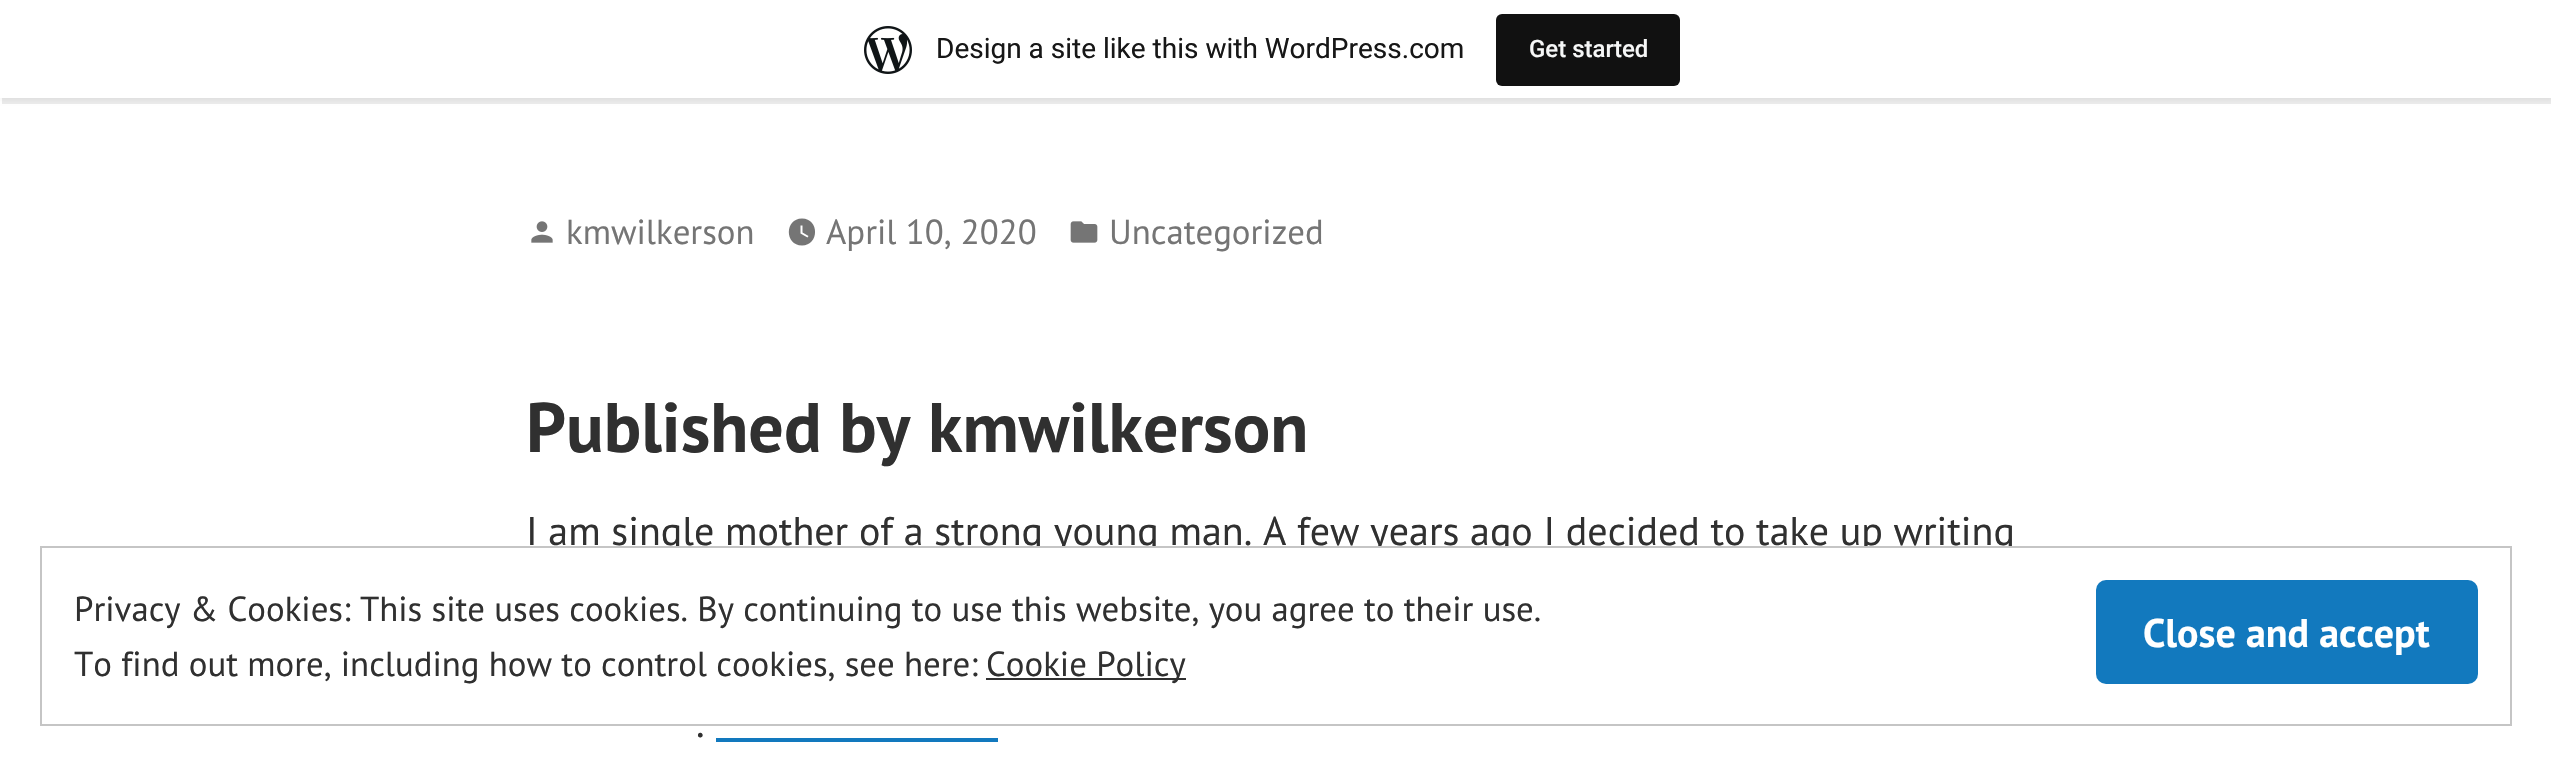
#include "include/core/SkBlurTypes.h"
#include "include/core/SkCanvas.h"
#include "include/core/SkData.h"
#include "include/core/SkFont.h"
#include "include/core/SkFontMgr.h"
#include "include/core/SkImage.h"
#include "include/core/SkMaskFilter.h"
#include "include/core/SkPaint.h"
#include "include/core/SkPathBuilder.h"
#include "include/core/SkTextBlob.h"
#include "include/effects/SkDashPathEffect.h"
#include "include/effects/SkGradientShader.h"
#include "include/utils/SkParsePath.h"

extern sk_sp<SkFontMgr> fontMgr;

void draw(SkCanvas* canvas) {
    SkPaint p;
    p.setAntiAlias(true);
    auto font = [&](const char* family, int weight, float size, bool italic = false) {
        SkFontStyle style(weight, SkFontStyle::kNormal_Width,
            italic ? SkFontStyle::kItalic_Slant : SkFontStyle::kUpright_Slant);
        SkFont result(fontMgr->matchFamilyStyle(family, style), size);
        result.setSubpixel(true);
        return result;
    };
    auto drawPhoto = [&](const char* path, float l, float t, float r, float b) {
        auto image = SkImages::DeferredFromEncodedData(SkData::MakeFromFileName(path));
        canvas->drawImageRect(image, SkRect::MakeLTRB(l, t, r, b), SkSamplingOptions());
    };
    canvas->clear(0xFFFFFFFF);
    p.setColor(0x0D000000);
    p.setMaskFilter(SkMaskFilter::MakeBlur(kNormal_SkBlurStyle, 2));
    canvas->drawRect(SkRect::MakeLTRB(0, 2, 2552, 100), p);
    p.setMaskFilter(nullptr);
    p.setColor(0x14000000);
    canvas->drawPath(SkPathBuilder().moveTo(2, 98).lineTo(2, 104).lineTo(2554, 104).lineTo(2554, 6).lineTo(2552, 6).lineTo(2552, 98).close().detach(), p);
    p.setColor(0xFFFFFFFF);
    canvas->drawRect(SkRect::MakeLTRB(0, 0, 2551, 98), p);
    drawPhoto("media/1.png", 864, 26, 912, 74);
    auto font1 = font("Roboto", 400, 28);
    p.setColor(0xFF171717);
    canvas->drawString("Design a site like this with WordPress.com", 936, 58, font1, p);
    p.setColor(0xFF111111);
    canvas->drawRoundRect(SkRect::MakeLTRB(1496, 14, 1680, 86), 6, 6, p);
    auto font2 = font("Roboto", 500, 24);
    p.setColor(0xFFF6F7F7);
    canvas->drawString("Get started", 1529, 57, font2, p);
    drawPhoto("media/2.png", 531, 221, 553, 243);
    auto font3 = font("PT Sans", 400, 34.8f);
    p.setColor(0xFF757575);
    canvas->drawString("kmwilkerson", 566, 244, font3, p);
    canvas->drawPath(SkPathBuilder().moveTo(802, 218.5f).cubicTo(784.5f, 218.5f, 784.5f, 245.5f, 802, 245.5f).cubicTo(819.5f, 245.5f, 819.5f, 218.5f, 802, 218.5f).close().moveTo(807.5f, 237.5f).lineTo(800.5f, 233.5f).lineTo(800.5f, 225.5f).lineTo(802.5f, 225.5f).lineTo(802.5f, 232.5f).lineTo(808.5f, 236).close().detach(), p);
    canvas->drawString("April 10, 2020", 826, 244, font3, p);
    drawPhoto("media/3.png", 1070, 221, 1098, 243);
    canvas->drawString("Uncategorized", 1109, 244, font3, p);
    auto font4 = font("PT Sans", 700, 70);
    p.setColor(0xFF303030);
    canvas->drawString("Published by kmwilkerson", 526, 452, font4, p);
    auto font5 = font("PT Sans", 400, 40);
    canvas->drawString("I am single mother of a strong young man. A few years ago I decided to take up writing", 526, 545, font5, p);
    canvas->drawString(".", 696, 737, font5, p);
    p.setColor(0xFF1279BE);
    canvas->drawRect(SkRect::MakeLTRB(716, 738, 998, 742), p);
    p.setColor(0xFFFFFFFF);
    canvas->drawRect(SkRect::MakeLTRB(664, 548, 2012, 554), p);
    p.setStyle(SkPaint::kStroke_Style);
    p.setStrokeWidth(2);
    p.setColor(0xFFC5C5C5);
    canvas->drawRect(SkRect::MakeLTRB(41, 547, 2511, 725), p);
    p.setStyle(SkPaint::kFill_Style);
    p.setColor(0xFF303030);
    canvas->drawString("Privacy & Cookies: This site uses cookies. By continuing to use this website, you agree to their use.", 74, 621, font3, p);
    p.setColor(0xFF1279BE);
    canvas->drawRoundRect(SkRect::MakeLTRB(2096, 580, 2478, 684), 10, 10, p);
    auto font6 = font("PT Sans", 700, 40);
    p.setColor(0xFFFFFFFF);
    canvas->drawString("Close and accept", 2143, 647, font6, p);
    p.setColor(0xFF303030);
    canvas->drawString("To find out more, including how to control cookies, see here:", 74, 676, font3, p);
    canvas->drawRect(SkRect::MakeLTRB(986, 678, 1186, 680), p);
    canvas->drawString("Cookie Policy", 986, 676, font3, p);
}
